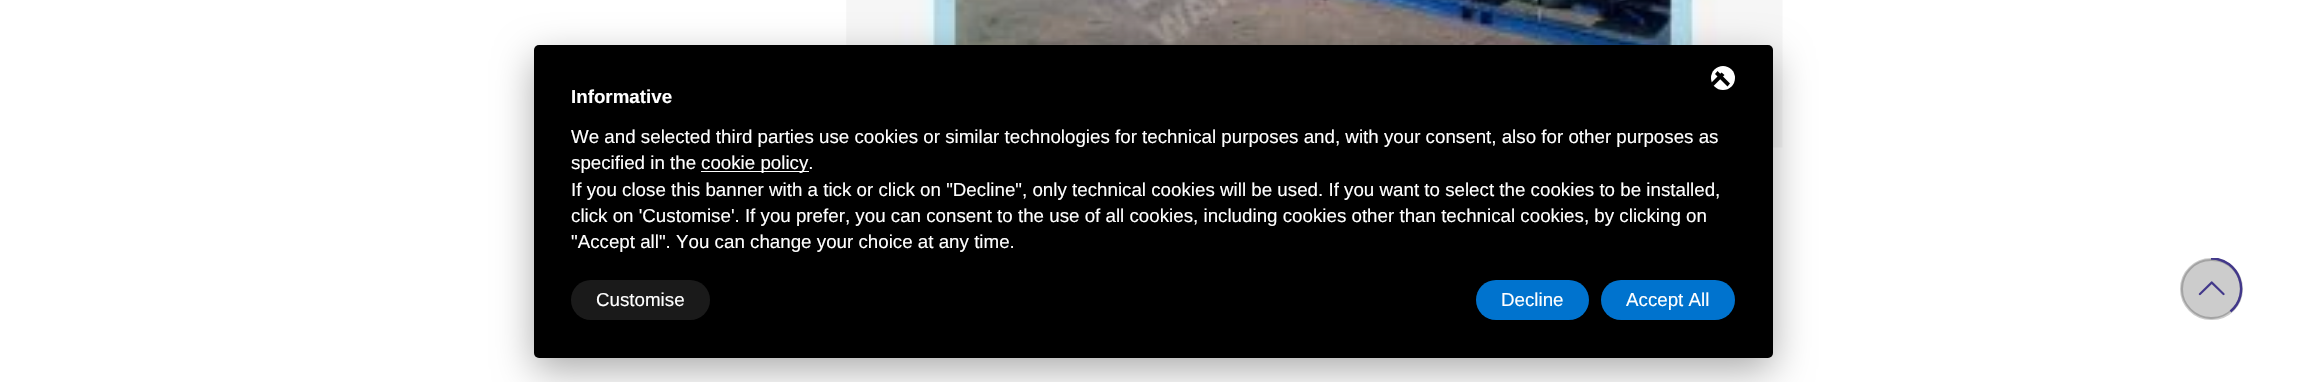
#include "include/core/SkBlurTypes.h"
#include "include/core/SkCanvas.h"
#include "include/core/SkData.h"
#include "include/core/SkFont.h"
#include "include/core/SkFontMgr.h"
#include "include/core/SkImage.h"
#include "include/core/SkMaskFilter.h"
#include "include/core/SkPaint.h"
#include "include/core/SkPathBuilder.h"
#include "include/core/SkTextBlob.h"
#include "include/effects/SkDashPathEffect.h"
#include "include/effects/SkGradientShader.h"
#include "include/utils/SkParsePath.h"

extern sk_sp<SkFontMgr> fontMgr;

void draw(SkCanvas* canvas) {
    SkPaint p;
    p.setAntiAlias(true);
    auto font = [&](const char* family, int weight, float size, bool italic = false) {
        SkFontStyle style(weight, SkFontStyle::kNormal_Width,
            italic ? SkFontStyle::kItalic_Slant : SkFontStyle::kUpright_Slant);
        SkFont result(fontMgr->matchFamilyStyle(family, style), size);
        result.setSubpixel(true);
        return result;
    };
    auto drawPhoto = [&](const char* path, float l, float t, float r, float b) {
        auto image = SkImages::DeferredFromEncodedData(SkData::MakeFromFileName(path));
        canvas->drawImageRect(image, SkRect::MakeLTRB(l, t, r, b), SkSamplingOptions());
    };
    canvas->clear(0xFFFFFFFF);
    drawPhoto("media/1.png", 846, 0, 1783, 148);
    p.setColor(0x54000000);
    p.setMaskFilter(SkMaskFilter::MakeBlur(kNormal_SkBlurStyle, 19));
    canvas->drawRoundRect(SkRect::MakeLTRB(534, 58, 1773, 370), 5, 5, p);
    p.setMaskFilter(nullptr);
    p.setColor(0xFF000000);
    canvas->drawRoundRect(SkRect::MakeLTRB(534, 45, 1773, 358), 5, 5, p);
    p.setColor(0xFFFFFFFF);
    canvas->drawCircle(1723, 78, 12, p);
    p.setColor(0xFF000000);
    canvas->drawPath(SkPathBuilder().moveTo(1715, 74).lineTo(1717.5f, 71).lineTo(1730, 83.5f).lineTo(1727.5f, 86.5f).close().detach(), p);
    canvas->drawPath(SkPathBuilder().moveTo(1721.5f, 72.5f).lineTo(1724.5f, 75).lineTo(1713.5f, 86).lineTo(1711, 83).close().detach(), p);
    auto font1 = font("Liberation Sans", 700, 18.75f);
    p.setColor(0xFFFFFFFF);
    canvas->drawString("Informative", 571, 103, font1, p);
    auto font2 = font("Liberation Sans", 400, 18.75f);
    canvas->drawString("We and selected third parties use cookies or similar technologies for technical purposes and, with your consent, also for other purposes as", 571, 143, font2, p);
    canvas->drawString("specified in the", 571, 169, font2, p);
    canvas->drawRect(SkRect::MakeLTRB(701, 171, 809, 172), p);
    {
        const struct { const char* s; float x, y; } items[] = {
            {"cookie policy.", 701, 169},
            {"If you close this banner with a tick or click on \"Decline\", only technical cookies will be used. If you want to select the cookies to be installed,", 571, 196},
            {"click on 'Customise'. If you prefer, you can consent to the use of all cookies, including cookies other than technical cookies, by clicking on", 571, 222},
            {"\"Accept all\". You can change your choice at any time.", 571, 248},
        };
        for (auto [s, x, y] : items) {
            canvas->drawString(s, x, y, font2, p);
        }
    }
    p.setColor(0xFF1A1A1A);
    canvas->drawRoundRect(SkRect::MakeLTRB(571, 280, 710, 320), 20, 20, p);
    p.setColor(0xFFFFFFFF);
    canvas->drawString("Customise", 596, 306, font2, p);
    p.setColor(0xFF0073CE);
    canvas->drawRoundRect(SkRect::MakeLTRB(1476, 280, 1589, 320), 20, 20, p);
    p.setColor(0xFFFFFFFF);
    canvas->drawString("Decline", 1501, 306, font2, p);
    p.setColor(0xFF0073CE);
    canvas->drawRoundRect(SkRect::MakeLTRB(1601, 280, 1735, 320), 20, 20, p);
    p.setColor(0xFFFFFFFF);
    canvas->drawString("Accept All", 1626, 306, font2, p);
    p.setStyle(SkPaint::kStroke_Style);
    p.setStrokeWidth(3);
    p.setColor(0xFFCCCCCC);
    canvas->drawRoundRect(SkRect::MakeLTRB(2181.5f, 259.5f, 2241.5f, 318.5f), 29.5f, 29.5f, p);
    p.setStyle(SkPaint::kFill_Style);
    p.setColor(0x33000000);
    canvas->drawPath(SkPathBuilder().moveTo(2211, 259).cubicTo(2228, 259, 2241, 272, 2241, 289).cubicTo(2241, 305, 2228, 319, 2211, 319).cubicTo(2195, 319, 2181, 305, 2181, 289).cubicTo(2181, 272, 2195, 259, 2211, 259).detach(), p);
    canvas->save();
    canvas->clipRect(SkRect::MakeLTRB(2180, 258, 2243, 320));
    p.setStyle(SkPaint::kStroke_Style);
    p.setStrokeWidth(2.5f);
    p.setColor(0xFF42388A);
    canvas->drawPath(SkPathBuilder().moveTo(2211, 258.5f).cubicTo(2239.5f, 258.5f, 2251.5f, 294, 2230.5f, 311.5f).detach(), p);
    canvas->restore();
    drawPhoto("media/2.png", 2198, 281, 2225, 296);
}
